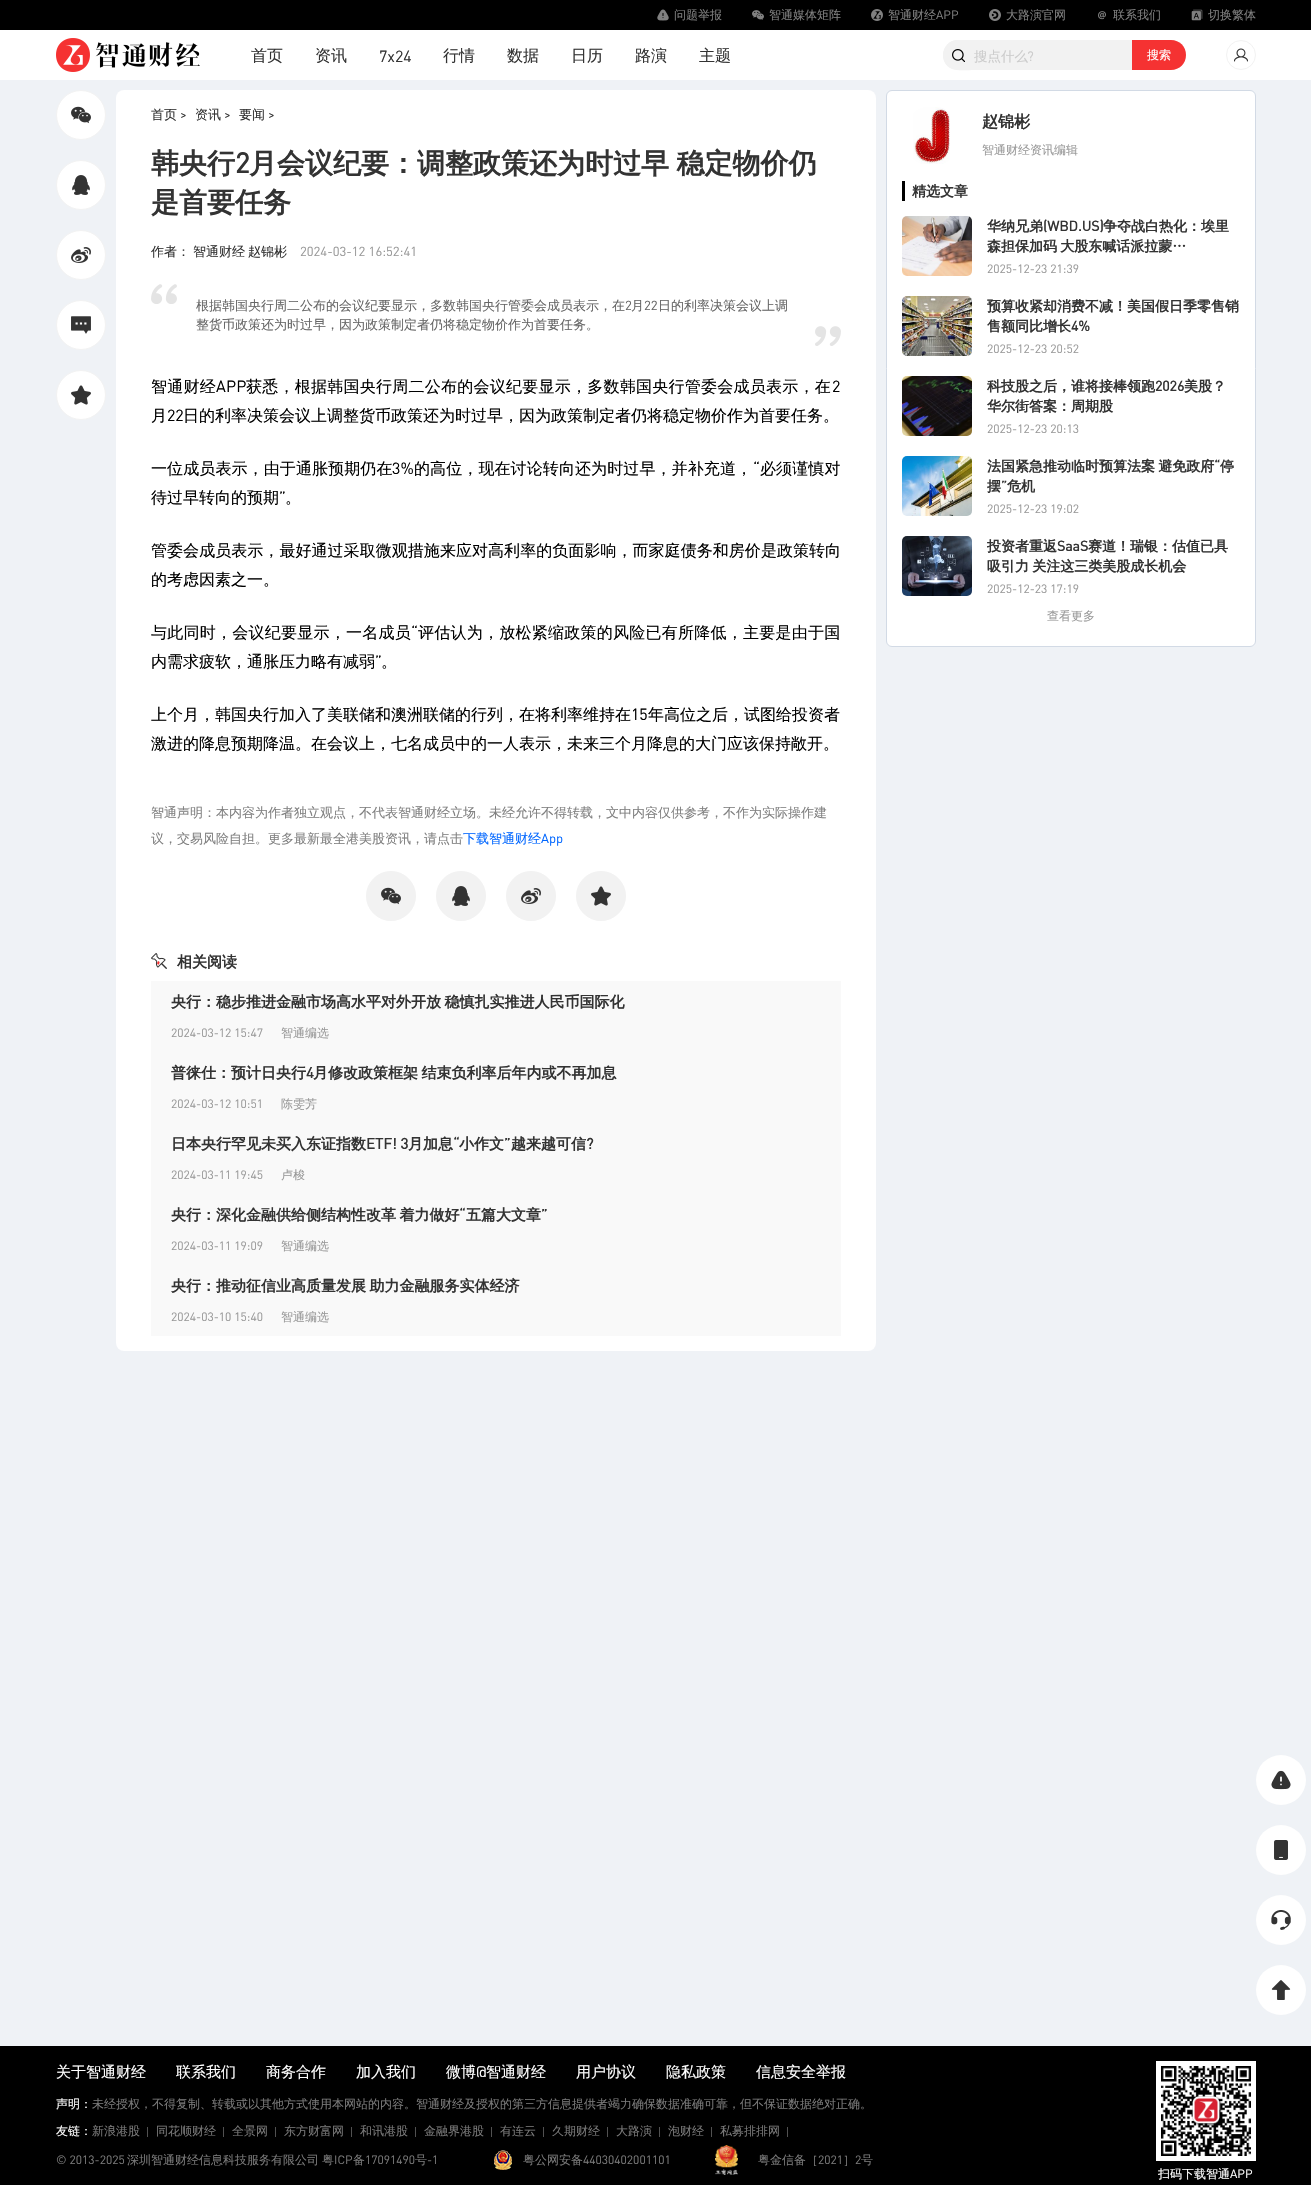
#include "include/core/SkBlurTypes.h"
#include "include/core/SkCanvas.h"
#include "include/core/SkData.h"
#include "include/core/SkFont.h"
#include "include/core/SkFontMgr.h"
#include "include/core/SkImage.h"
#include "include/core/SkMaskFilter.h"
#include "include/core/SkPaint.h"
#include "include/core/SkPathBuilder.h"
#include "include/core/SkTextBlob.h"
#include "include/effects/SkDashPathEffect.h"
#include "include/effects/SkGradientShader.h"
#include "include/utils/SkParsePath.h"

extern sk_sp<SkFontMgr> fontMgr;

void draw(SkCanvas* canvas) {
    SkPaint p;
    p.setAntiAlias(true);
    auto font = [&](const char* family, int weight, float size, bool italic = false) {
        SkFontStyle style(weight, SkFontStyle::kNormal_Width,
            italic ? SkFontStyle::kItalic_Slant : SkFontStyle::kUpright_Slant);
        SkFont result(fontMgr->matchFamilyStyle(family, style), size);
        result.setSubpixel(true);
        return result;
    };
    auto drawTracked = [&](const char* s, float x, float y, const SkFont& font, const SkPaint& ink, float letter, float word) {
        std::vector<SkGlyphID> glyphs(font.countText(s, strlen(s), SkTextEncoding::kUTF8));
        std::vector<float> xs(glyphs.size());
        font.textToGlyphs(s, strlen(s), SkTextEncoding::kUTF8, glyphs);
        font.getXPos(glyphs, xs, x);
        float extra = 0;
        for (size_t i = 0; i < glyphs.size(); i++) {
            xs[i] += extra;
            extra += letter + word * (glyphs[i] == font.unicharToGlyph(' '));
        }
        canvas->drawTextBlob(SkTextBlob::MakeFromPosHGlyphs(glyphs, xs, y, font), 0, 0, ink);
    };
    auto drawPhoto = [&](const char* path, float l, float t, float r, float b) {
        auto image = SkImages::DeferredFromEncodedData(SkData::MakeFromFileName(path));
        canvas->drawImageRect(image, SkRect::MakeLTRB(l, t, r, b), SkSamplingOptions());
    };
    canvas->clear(0xFFEFF2F6);
    p.setColor(0xFFFFFFFF);
    canvas->drawRect(SkRect::MakeLTRB(0, 30, 1311, 80), p);
    p.setColor(0xFF000000);
    canvas->drawRect(SkRect::MakeLTRB(0, 0, 1311, 30), p);
    drawPhoto("media/1.png", 657, 9, 669, 21);
    auto font1 = font("WenQuanYi Zen Hei", 500, 12);
    p.setColor(0xFF808080);
    canvas->drawString("问题举报", 674, 19, font1, p);
    drawPhoto("media/2.png", 752, 10, 764, 20);
    canvas->drawString("智通媒体矩阵", 769, 19, font1, p);
    drawPhoto("media/3.png", 871, 9, 883, 21);
    canvas->drawString("智通财经", 888, 19, font1, p);
    auto font2 = font("DIN", 400, 12);
    canvas->drawString("APP", 936, 19, font2, p);
    drawPhoto("media/4.png", 989, 9, 1001, 21);
    canvas->drawString("大路演官网", 1006, 19, font1, p);
    drawPhoto("media/5.png", 1098, 11, 1106, 20);
    canvas->drawString("联系我们", 1113, 19, font1, p);
    drawPhoto("media/6.png", 1191, 9, 1203, 21);
    canvas->drawString("切换繁体", 1208, 19, font1, p);
    drawPhoto("media/7.png", 56, 38, 200, 72);
    auto font3 = font("WenQuanYi Zen Hei", 500, 16);
    p.setColor(0xFF333333);
    canvas->drawString("首页", 251, 61, font3, p);
    canvas->drawString("资讯", 315, 61, font3, p);
    auto font4 = font("DIN", 400, 16);
    canvas->drawString("7x24", 379, 62, font4, p);
    {
        const struct { const char* s; float x, y; } items[] = {
            {"行情", 443, 61},
            {"数据", 507, 61},
            {"日历", 571, 61},
            {"路演", 635, 61},
            {"主题", 699, 61},
        };
        for (auto [s, x, y] : items) {
            canvas->drawString(s, x, y, font3, p);
        }
    }
    p.setColor(0xFFF2F2F2);
    canvas->drawRoundRect(SkRect::MakeLTRB(943, 40, 1186, 70), 15, 15, p);
    canvas->drawPath(SkPathBuilder(SkPathFillType::kEvenOdd).moveTo(958, 40).lineTo(974, 40).lineTo(974, 70).cubicTo(968.5f, 70, 957, 71, 952, 69).cubicTo(937.5f, 62.5f, 942, 40, 958, 40).close().moveTo(958, 41).lineTo(974, 41).lineTo(974, 69).cubicTo(968.5f, 69, 957.5f, 70, 952.5f, 68).cubicTo(938.5f, 62, 943, 41, 958, 41).close().detach(), p);
    drawPhoto("media/8.png", 952, 49, 965, 62);
    auto font5 = font("WenQuanYi Zen Hei", 500, 13.5f);
    p.setColor(0xFFCCCCCC);
    canvas->drawString("搜点什么", 974, 61, font5, p);
    auto font6 = font("DIN", 400, 13.5f);
    canvas->drawString("?", 1027, 61, font6, p);
    p.setColor(0xFFF53232);
    canvas->drawPath(SkPathBuilder().moveTo(1132, 40).lineTo(1171, 40).cubicTo(1179.5f, 40, 1186, 46.5f, 1186, 55).cubicTo(1186, 63.5f, 1179.5f, 70, 1171, 70).lineTo(1132, 70).close().detach(), p);
    p.setColor(0xFFFFFFFF);
    canvas->drawString("搜索", 1147, 59, font1, p);
    p.setStyle(SkPaint::kStroke_Style);
    p.setStrokeWidth(1);
    p.setColor(0xFFF2F2F2);
    canvas->drawCircle(1241, 55, 14.5f, p);
    drawPhoto("media/9.png", 1234, 48, 1248, 62);
    p.setStyle(SkPaint::kFill_Style);
    p.setColor(0xFFFFFFFF);
    canvas->drawCircle(81, 115, 24.5f, p);
    p.setStyle(SkPaint::kStroke_Style);
    p.setColor(0xFFF2F2F2);
    canvas->drawCircle(81, 115, 24.5f, p);
    drawPhoto("media/10.png", 71, 106, 91, 124);
    p.setStyle(SkPaint::kFill_Style);
    p.setColor(0xFFFFFFFF);
    canvas->drawCircle(81, 185, 24.5f, p);
    p.setStyle(SkPaint::kStroke_Style);
    p.setColor(0xFFF2F2F2);
    canvas->drawCircle(81, 185, 24.5f, p);
    drawPhoto("media/11.png", 72, 175, 90, 195);
    p.setStyle(SkPaint::kFill_Style);
    p.setColor(0xFFFFFFFF);
    canvas->drawCircle(81, 255, 24.5f, p);
    p.setStyle(SkPaint::kStroke_Style);
    p.setColor(0xFFF2F2F2);
    canvas->drawCircle(81, 255, 24.5f, p);
    drawPhoto("media/12.png", 71, 247, 91, 263);
    p.setStyle(SkPaint::kFill_Style);
    p.setColor(0xFFFFFFFF);
    canvas->drawCircle(81, 325, 24.5f, p);
    p.setStyle(SkPaint::kStroke_Style);
    p.setColor(0xFFF2F2F2);
    canvas->drawCircle(81, 325, 24.5f, p);
    drawPhoto("media/13.png", 71, 316, 91, 334);
    p.setStyle(SkPaint::kFill_Style);
    p.setColor(0xFFFFFFFF);
    canvas->drawCircle(81, 395, 24.5f, p);
    p.setStyle(SkPaint::kStroke_Style);
    p.setColor(0xFFF2F2F2);
    canvas->drawCircle(81, 395, 24.5f, p);
    drawPhoto("media/14.png", 71, 385, 91, 405);
    p.setStyle(SkPaint::kFill_Style);
    p.setColor(0xFFFFFFFF);
    canvas->drawRoundRect(SkRect::MakeLTRB(116, 90, 876, 1351), 8, 8, p);
    auto font7 = font("WenQuanYi Zen Hei", 500, 13);
    p.setColor(0xFF333333);
    canvas->drawString("首页", 151, 119, font7, p);
    auto font8 = font("DIN", 400, 13);
    canvas->drawString(">", 180, 119, font8, p);
    canvas->drawString("资讯", 195, 119, font7, p);
    canvas->drawString(">", 224, 119, font8, p);
    canvas->drawString("要闻", 239, 119, font7, p);
    canvas->drawString(">", 268, 119, font8, p);
    auto font9 = font("WenQuanYi Zen Hei", 700, 28);
    canvas->drawString("韩央行", 151, 173, font9, p);
    auto font10 = font("DIN", 700, 28);
    canvas->drawString("2", 235, 173, font10, p);
    drawTracked("月会议纪要：调整政策还为时过早 稳定物价仍", 249, 173, font9, p, 0, -1);
    canvas->drawString("是首要任务", 151, 212, font9, p);
    {
        const struct { const char* s; float x, y; } items[] = {
            {"作者：", 151, 256},
            {"智通财经", 193, 256},
            {"赵锦彬", 248, 256},
        };
        for (auto [s, x, y] : items) {
            canvas->drawString(s, x, y, font7, p);
        }
    }
    p.setColor(0xFF999999);
    canvas->drawString("2024-03-12 16:52:41", 300, 256, font8, p);
    drawPhoto("media/15.png", 151, 284, 177, 304);
    p.setColor(0xFF666666);
    canvas->drawString("根据韩国央行周二公布的会议纪要显示，多数韩国央行管委会成员表示，在", 196, 310, font7, p);
    canvas->drawString("2", 625, 310, font8, p);
    canvas->drawString("月", 631, 310, font7, p);
    canvas->drawString("22", 644, 310, font8, p);
    canvas->drawString("日的利率决策会议上调", 658, 310, font7, p);
    canvas->drawString("整货币政策还为时过早，因为政策制定者仍将稳定物价作为首要任务。", 196, 329, font7, p);
    drawPhoto("media/16.png", 815, 326, 841, 346);
    p.setColor(0xFF000000);
    drawTracked("智通财经", 151, 392, font3, p, 0.25f, 0);
    drawTracked("APP", 216, 392, font4, p, 0.25f, 0);
    drawTracked("获悉，根据韩国央行周二公布的会议纪要显示，多数韩国央行管委会成员表示，在", 246, 392, font3, p, 0.25f, 0);
    drawTracked("2", 832, 392, font4, p, 0.25f, 0);
    canvas->drawString("月", 151, 421, font3, p);
    canvas->drawString("22", 167, 421, font4, p);
    canvas->drawString("日的利率决策会议上调整货币政策还为时过早，因为政策制定者仍将稳定物价作为首要任务。", 183, 421, font3, p);
    drawTracked("一位成员表示，由于通胀预期仍在", 151, 474, font3, p, 0.1f, 0);
    drawTracked("3%", 392, 474, font4, p, 0.1f, 0);
    drawTracked("的高位，现在讨论转向还为时过早，并补充道，", 414, 474, font3, p, 0.1f, 0);
    drawTracked("“", 753, 474, font4, p, 0.1f, 0);
    drawTracked("必须谨慎对", 760, 474, font3, p, 0.1f, 0);
    canvas->drawString("待过早转向的预期", 151, 503, font3, p);
    canvas->drawString("”", 279, 503, font4, p);
    canvas->drawString("。", 285, 503, font3, p);
    drawTracked("管委会成员表示，最好通过采取微观措施来应对高利率的负面影响，而家庭债务和房价是政策转向", 151, 556, font3, p, 0.05f, 0);
    canvas->drawString("的考虑因素之一。", 151, 585, font3, p);
    drawTracked("与此同时，会议纪要显示，一名成员", 151, 638, font3, p, 0.25f, 0);
    drawTracked("“", 411, 638, font4, p, 0.25f, 0);
    drawTracked("评估认为，放松紧缩政策的风险已有所降低，主要是由于国", 418, 638, font3, p, 0.25f, 0);
    canvas->drawString("内需求疲软，通胀压力略有减弱", 151, 667, font3, p);
    canvas->drawString("”", 375, 667, font4, p);
    canvas->drawString("。", 381, 667, font3, p);
    canvas->drawString("上个月，韩国央行加入了美联储和澳洲联储的行列，在将利率维持在", 151, 720, font3, p);
    canvas->drawString("15", 631, 720, font4, p);
    canvas->drawString("年高位之后，试图给投资者", 648, 720, font3, p);
    canvas->drawString("激进的降息预期降温。在会议上，七名成员中的一人表示，未来三个月降息的大门应该保持敞开。", 151, 749, font3, p);
    p.setColor(0xFF808080);
    canvas->drawString("智通声明：本内容为作者独立观点，不代表智通财经立场。未经允许不得转载，文中内容仅供参考，不作为实际操作建", 151, 817, font7, p);
    canvas->drawString("议，交易风险自担。更多最新最全港美股资讯，请点击", 151, 843, font7, p);
    p.setColor(0xFF0066FF);
    canvas->drawString("下载智通财经", 463, 843, font7, p);
    canvas->drawString("App", 541, 843, font8, p);
    p.setColor(0xFFF2F2F2);
    canvas->drawCircle(391, 896, 24.5f, p);
    p.setStyle(SkPaint::kStroke_Style);
    canvas->drawCircle(391, 896, 24.5f, p);
    drawPhoto("media/17.png", 381, 887, 401, 905);
    p.setStyle(SkPaint::kFill_Style);
    canvas->drawCircle(461, 896, 24.5f, p);
    p.setStyle(SkPaint::kStroke_Style);
    canvas->drawCircle(461, 896, 24.5f, p);
    drawPhoto("media/18.png", 452, 886, 470, 906);
    p.setStyle(SkPaint::kFill_Style);
    canvas->drawCircle(531, 896, 24.5f, p);
    p.setStyle(SkPaint::kStroke_Style);
    canvas->drawCircle(531, 896, 24.5f, p);
    drawPhoto("media/19.png", 521, 888, 541, 904);
    p.setStyle(SkPaint::kFill_Style);
    canvas->drawCircle(601, 896, 24.5f, p);
    p.setStyle(SkPaint::kStroke_Style);
    canvas->drawCircle(601, 896, 24.5f, p);
    drawPhoto("media/20.png", 591, 886, 611, 906);
    drawPhoto("media/21.png", 151, 953, 167, 969);
    auto font11 = font("WenQuanYi Zen Hei", 700, 15);
    p.setStyle(SkPaint::kFill_Style);
    p.setColor(0xFF333333);
    canvas->drawString("相关阅读", 177, 967, font11, p);
    p.setColor(0xFFF9F9F9);
    canvas->drawRect(SkRect::MakeLTRB(151, 981, 841, 1336), p);
    p.setColor(0xFF333333);
    drawTracked("央行：稳步推进金融市场高水平对外开放 稳慎扎实推进人民币国际化", 171, 1007, font11, p, 0, -1);
    p.setColor(0xFF999999);
    canvas->drawString("2024-03-12 15:47", 171, 1037, font2, p);
    canvas->drawString("智通编选", 281, 1037, font1, p);
    p.setColor(0xFF333333);
    canvas->drawString("普徕仕：预计日央行", 171, 1078, font11, p);
    auto font12 = font("DIN", 700, 15);
    canvas->drawString("4", 306, 1078, font12, p);
    drawTracked("月修改政策框架 结束负利率后年内或不再加息", 313, 1078, font11, p, 0, -1);
    p.setColor(0xFF999999);
    canvas->drawString("2024-03-12 10:51", 171, 1108, font2, p);
    canvas->drawString("陈雯芳", 281, 1108, font1, p);
    p.setColor(0xFF333333);
    canvas->drawString("日本央行罕见未买入东证指数", 171, 1149, font11, p);
    canvas->drawString("ETF! 3", 366, 1149, font12, p);
    canvas->drawString("月加息", 408, 1149, font11, p);
    canvas->drawString("“", 453, 1149, font12, p);
    canvas->drawString("小作文", 459, 1149, font11, p);
    canvas->drawString("”", 504, 1149, font12, p);
    canvas->drawString("越来越可信", 511, 1149, font11, p);
    canvas->drawString("?", 586, 1149, font12, p);
    p.setColor(0xFF999999);
    canvas->drawString("2024-03-11 19:45", 171, 1179, font2, p);
    canvas->drawString("卢梭", 281, 1179, font1, p);
    p.setColor(0xFF333333);
    drawTracked("央行：深化金融供给侧结构性改革 着力做好", 171, 1220, font11, p, 0, -1);
    canvas->drawString("“", 459, 1220, font12, p);
    canvas->drawString("五篇大文章", 466, 1220, font11, p);
    canvas->drawString("”", 541, 1220, font12, p);
    p.setColor(0xFF999999);
    canvas->drawString("2024-03-11 19:09", 171, 1250, font2, p);
    canvas->drawString("智通编选", 281, 1250, font1, p);
    p.setColor(0xFF333333);
    drawTracked("央行：推动征信业高质量发展 助力金融服务实体经济", 171, 1291, font11, p, 0, -1);
    p.setColor(0xFF999999);
    canvas->drawString("2024-03-10 15:40", 171, 1321, font2, p);
    canvas->drawString("智通编选", 281, 1321, font1, p);
    p.setColor(0xFFFFFFFF);
    canvas->drawRoundRect(SkRect::MakeLTRB(886.5f, 90.5f, 1255.5f, 646.5f), 5.5f, 5.5f, p);
    p.setStyle(SkPaint::kStroke_Style);
    p.setColor(0xFFD2DAE5);
    canvas->drawRoundRect(SkRect::MakeLTRB(886.5f, 90.5f, 1255.5f, 646.5f), 5.5f, 5.5f, p);
    drawPhoto("media/22.png", 913, 107, 950, 164);
    auto font13 = font("WenQuanYi Zen Hei", 700, 16);
    p.setStyle(SkPaint::kFill_Style);
    p.setColor(0xFF333333);
    canvas->drawString("赵锦彬", 982, 127, font13, p);
    p.setColor(0xFF999999);
    canvas->drawString("智通财经资讯编辑", 982, 154, font1, p);
    p.setColor(0xFF000000);
    canvas->drawRect(SkRect::MakeLTRB(902, 181, 905, 201), p);
    auto font14 = font("WenQuanYi Zen Hei", 700, 14);
    p.setColor(0xFF333333);
    canvas->drawString("精选文章", 912, 196, font14, p);
    drawPhoto("media/23.png", 902, 216, 972, 276);
    canvas->drawString("华纳兄弟", 987, 231, font14, p);
    auto font15 = font("DIN", 700, 14);
    canvas->drawString("(WBD.US)", 1043, 231, font15, p);
    canvas->drawString("争夺战白热化：埃里", 1103, 231, font14, p);
    drawTracked("森担保加码 大股东喊话派拉蒙…", 987, 251, font14, p, 0, -1);
    p.setColor(0xFF999999);
    canvas->drawString("2025-12-23 21:39", 987, 273, font2, p);
    drawPhoto("media/24.png", 902, 296, 972, 356);
    p.setColor(0xFF333333);
    canvas->drawString("预算收紧却消费不减！美国假日季零售销", 987, 311, font14, p);
    canvas->drawString("售额同比增长", 987, 331, font14, p);
    canvas->drawString("4%", 1071, 331, font15, p);
    p.setColor(0xFF999999);
    canvas->drawString("2025-12-23 20:52", 987, 353, font2, p);
    drawPhoto("media/25.png", 902, 376, 972, 436);
    p.setColor(0xFF333333);
    canvas->drawString("科技股之后，谁将接棒领跑", 987, 391, font14, p);
    canvas->drawString("2026", 1155, 391, font15, p);
    canvas->drawString("美股？", 1184, 391, font14, p);
    canvas->drawString("华尔街答案：周期股", 987, 411, font14, p);
    p.setColor(0xFF999999);
    canvas->drawString("2025-12-23 20:13", 987, 433, font2, p);
    drawPhoto("media/26.png", 902, 456, 972, 516);
    p.setColor(0xFF333333);
    drawTracked("法国紧急推动临时预算法案 避免政府", 987, 471, font14, p, 0, -1);
    canvas->drawString("“", 1214, 471, font15, p);
    canvas->drawString("停", 1220, 471, font14, p);
    canvas->drawString("摆", 987, 491, font14, p);
    canvas->drawString("”", 1001, 491, font15, p);
    canvas->drawString("危机", 1007, 491, font14, p);
    p.setColor(0xFF999999);
    canvas->drawString("2025-12-23 19:02", 987, 513, font2, p);
    drawPhoto("media/27.png", 902, 536, 972, 596);
    canvas->save();
    canvas->clipRect(SkRect::MakeLTRB(987, 536, 1240, 576));
    p.setColor(0xFF333333);
    canvas->drawString("投资者重返", 987, 551, font14, p);
    canvas->restore();
    canvas->drawString("SaaS", 1057, 551, font15, p);
    canvas->drawString("赛道！瑞银：估值已具", 1088, 551, font14, p);
    drawTracked("吸引力 关注这三类美股成长机会", 987, 571, font14, p, 0, -1);
    p.setColor(0xFF999999);
    canvas->drawString("2025-12-23 17:19", 987, 593, font2, p);
    canvas->drawString("查看更多", 1047, 620, font1, p);
    p.setColor(0xFFFFFFFF);
    canvas->drawCircle(1281, 1780, 25, p);
    drawPhoto("media/28.png", 1271, 1770, 1291, 1790);
    canvas->drawCircle(1281, 1850, 25, p);
    drawPhoto("media/29.png", 1274, 1840, 1288, 1860);
    canvas->drawCircle(1281, 1920, 25, p);
    drawPhoto("media/30.png", 1271, 1910, 1291, 1930);
    canvas->drawCircle(1281, 1990, 25, p);
    drawPhoto("media/31.png", 1271, 1980, 1291, 2000);
    p.setColor(0xFF000000);
    canvas->drawRect(SkRect::MakeLTRB(0, 2046, 1311, 2185), p);
    auto font16 = font("WenQuanYi Zen Hei", 500, 15);
    p.setColor(0xFFFFFFFF);
    {
        const struct { const char* s; float x, y; } items[] = {
            {"关于智通财经", 56, 2077},
            {"联系我们", 176, 2077},
            {"商务合作", 266, 2077},
            {"加入我们", 356, 2077},
            {"微博", 446, 2077},
        };
        for (auto [s, x, y] : items) {
            canvas->drawString(s, x, y, font16, p);
        }
    }
    auto font17 = font("DIN", 400, 15);
    canvas->drawString("@", 476, 2077, font17, p);
    {
        const struct { const char* s; float x, y; } items[] = {
            {"智通财经", 486, 2077},
            {"用户协议", 576, 2077},
            {"隐私政策", 666, 2077},
            {"信息安全举报", 756, 2077},
        };
        for (auto [s, x, y] : items) {
            canvas->drawString(s, x, y, font16, p);
        }
    }
    canvas->drawString("声明：", 56, 2108, font1, p);
    p.setColor(0xFF797979);
    canvas->drawString("未经授权，不得复制、转载或以其他方式使用本网站的内容。智通财经及授权的第三方信息提供者竭力确保数据准确可靠，但不保证数据绝对正确。", 92, 2108, font1, p);
    p.setColor(0xFFFFFFFF);
    canvas->drawString("友链：", 56, 2135, font1, p);
    p.setColor(0xFF797979);
    canvas->drawString("新浪港股", 92, 2135, font1, p);
    p.setColor(0xFF515151);
    canvas->drawRect(SkRect::MakeLTRB(147, 2127, 148, 2137), p);
    p.setColor(0xFF797979);
    canvas->drawString("同花顺财经", 156, 2135, font1, p);
    p.setColor(0xFF515151);
    canvas->drawRect(SkRect::MakeLTRB(223, 2127, 224, 2137), p);
    p.setColor(0xFF797979);
    canvas->drawString("全景网", 232, 2135, font1, p);
    p.setColor(0xFF515151);
    canvas->drawRect(SkRect::MakeLTRB(275, 2127, 276, 2137), p);
    p.setColor(0xFF797979);
    canvas->drawString("东方财富网", 284, 2135, font1, p);
    p.setColor(0xFF515151);
    canvas->drawRect(SkRect::MakeLTRB(351, 2127, 352, 2137), p);
    p.setColor(0xFF797979);
    canvas->drawString("和讯港股", 360, 2135, font1, p);
    p.setColor(0xFF515151);
    canvas->drawRect(SkRect::MakeLTRB(415, 2127, 416, 2137), p);
    p.setColor(0xFF797979);
    canvas->drawString("金融界港股", 424, 2135, font1, p);
    p.setColor(0xFF515151);
    canvas->drawRect(SkRect::MakeLTRB(491, 2127, 492, 2137), p);
    p.setColor(0xFF797979);
    canvas->drawString("有连云", 500, 2135, font1, p);
    p.setColor(0xFF515151);
    canvas->drawRect(SkRect::MakeLTRB(543, 2127, 544, 2137), p);
    p.setColor(0xFF797979);
    canvas->drawString("久期财经", 552, 2135, font1, p);
    p.setColor(0xFF515151);
    canvas->drawRect(SkRect::MakeLTRB(607, 2127, 608, 2137), p);
    p.setColor(0xFF797979);
    canvas->drawString("大路演", 616, 2135, font1, p);
    p.setColor(0xFF515151);
    canvas->drawRect(SkRect::MakeLTRB(659, 2127, 660, 2137), p);
    p.setColor(0xFF797979);
    canvas->drawString("泡财经", 668, 2135, font1, p);
    p.setColor(0xFF515151);
    canvas->drawRect(SkRect::MakeLTRB(711, 2127, 712, 2137), p);
    p.setColor(0xFF797979);
    canvas->drawString("私募排排网", 720, 2135, font1, p);
    p.setColor(0xFF515151);
    canvas->drawRect(SkRect::MakeLTRB(787, 2127, 788, 2137), p);
    p.setColor(0xFF797979);
    canvas->drawString("© 2013-2025", 56, 2164, font2, p);
    canvas->drawString("深圳智通财经信息科技服务有限公司", 127, 2164, font1, p);
    canvas->drawString("粤", 322, 2164, font1, p);
    canvas->drawString("ICP", 334, 2164, font2, p);
    canvas->drawString("备", 353, 2164, font1, p);
    canvas->drawString("17091490", 365, 2164, font2, p);
    canvas->drawString("号", 415, 2164, font1, p);
    canvas->drawString("-1", 427, 2164, font2, p);
    drawPhoto("media/32.png", 494, 2150, 512, 2170);
    canvas->drawString("粤公网安备", 523, 2164, font1, p);
    canvas->drawString("44030402001101", 583, 2164, font2, p);
    drawPhoto("media/33.png", 715, 2145, 738, 2175);
    canvas->drawString("粤金信备［", 758, 2164, font1, p);
    canvas->drawString("2021", 818, 2164, font2, p);
    canvas->drawString("］", 843, 2164, font1, p);
    canvas->drawString("2", 855, 2164, font2, p);
    canvas->drawString("号", 861, 2164, font1, p);
    p.setColor(0xFFFFFFFF);
    canvas->drawRect(SkRect::MakeLTRB(1156, 2061, 1256, 2161), p);
    drawPhoto("media/34.png", 1161, 2066, 1251, 2156);
    canvas->drawString("扫码下载智通", 1158, 2178, font1, p);
    canvas->drawString("APP", 1230, 2178, font2, p);
}
